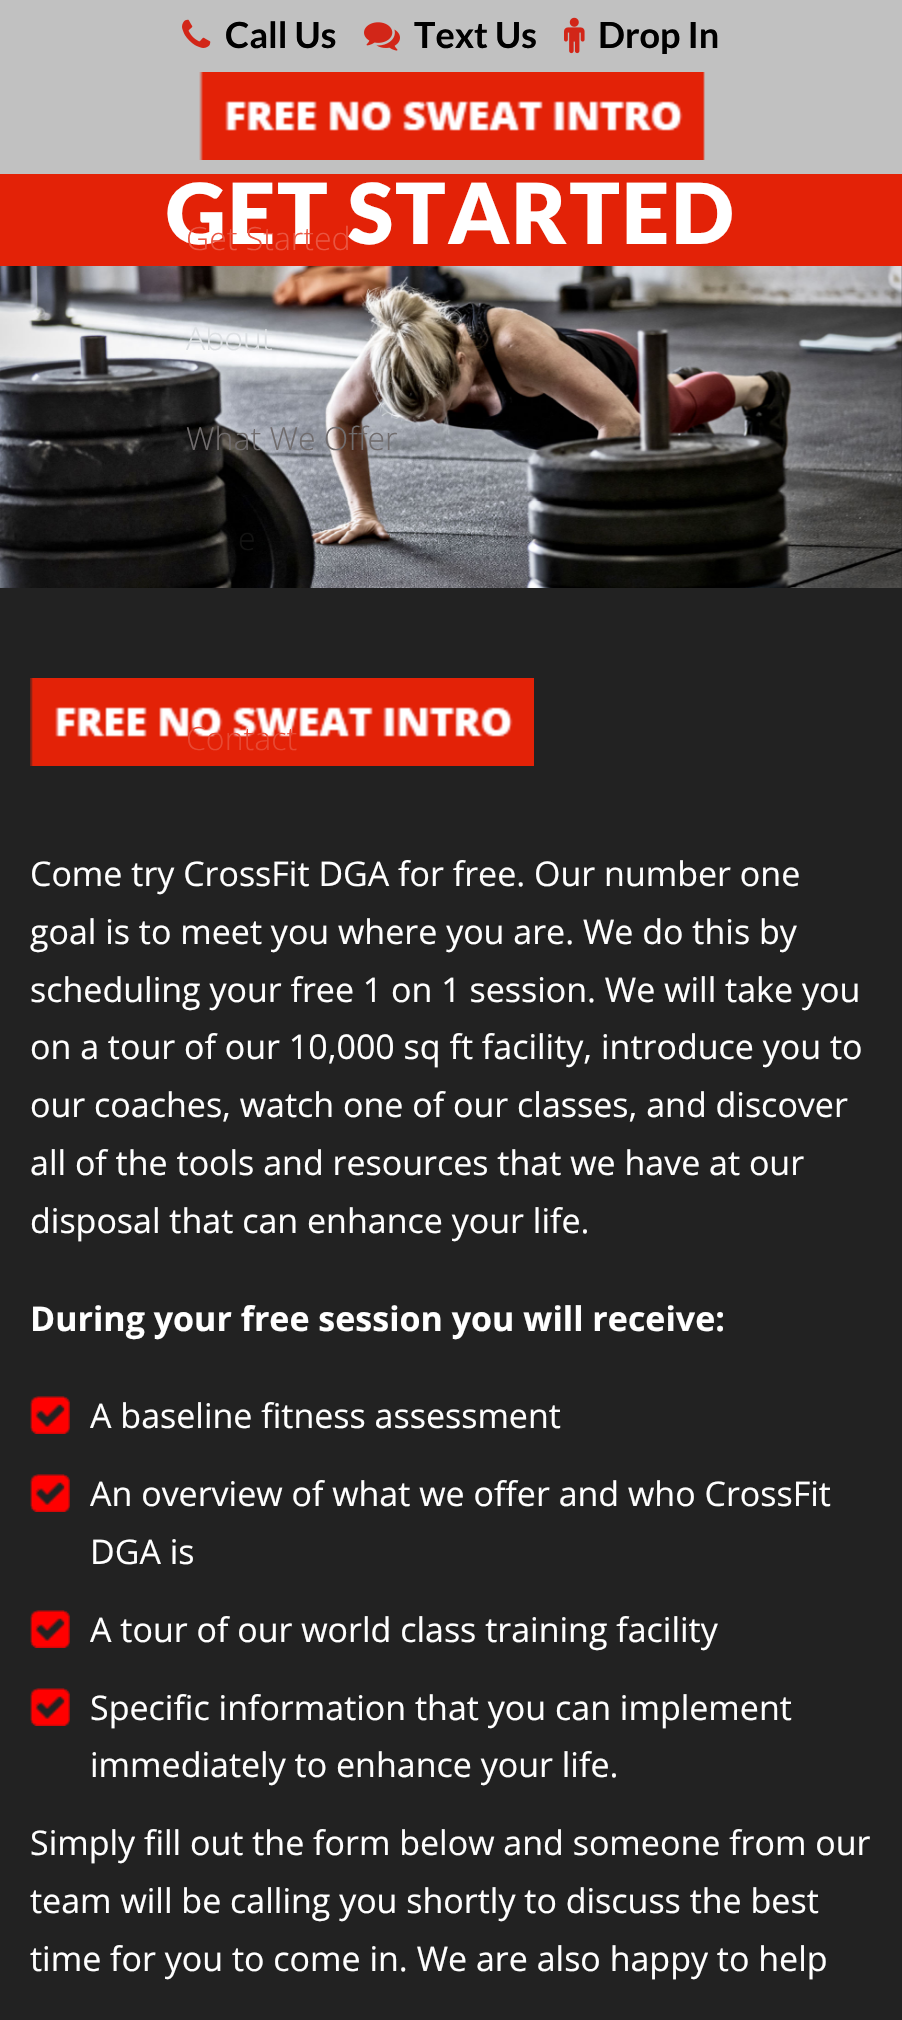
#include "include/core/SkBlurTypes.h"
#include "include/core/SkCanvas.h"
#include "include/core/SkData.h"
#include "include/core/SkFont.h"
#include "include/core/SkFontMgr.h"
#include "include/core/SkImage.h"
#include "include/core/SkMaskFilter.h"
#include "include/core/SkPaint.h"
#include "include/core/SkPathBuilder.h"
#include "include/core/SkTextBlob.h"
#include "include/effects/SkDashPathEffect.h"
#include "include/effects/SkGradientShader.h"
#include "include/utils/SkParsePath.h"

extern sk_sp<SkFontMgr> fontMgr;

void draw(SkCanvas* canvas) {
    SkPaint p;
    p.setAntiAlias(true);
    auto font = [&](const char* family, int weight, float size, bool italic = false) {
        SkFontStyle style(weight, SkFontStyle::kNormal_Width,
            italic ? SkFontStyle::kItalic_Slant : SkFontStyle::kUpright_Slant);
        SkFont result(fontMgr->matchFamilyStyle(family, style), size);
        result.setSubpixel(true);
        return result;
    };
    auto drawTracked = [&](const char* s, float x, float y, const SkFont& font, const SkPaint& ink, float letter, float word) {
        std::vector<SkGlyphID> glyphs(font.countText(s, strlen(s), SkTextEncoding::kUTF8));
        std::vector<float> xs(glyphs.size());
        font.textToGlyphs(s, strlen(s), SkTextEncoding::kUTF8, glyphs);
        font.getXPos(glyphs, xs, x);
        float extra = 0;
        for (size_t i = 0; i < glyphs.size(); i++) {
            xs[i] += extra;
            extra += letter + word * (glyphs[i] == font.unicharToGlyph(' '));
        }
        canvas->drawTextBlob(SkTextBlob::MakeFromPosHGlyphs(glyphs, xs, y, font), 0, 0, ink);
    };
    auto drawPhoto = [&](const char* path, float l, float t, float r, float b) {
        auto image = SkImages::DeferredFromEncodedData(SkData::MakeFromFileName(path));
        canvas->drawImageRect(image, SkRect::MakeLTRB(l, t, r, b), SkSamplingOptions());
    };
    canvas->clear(0xFF222222);
    p.setColor(0xFFC1C1C1);
    canvas->drawRect(SkRect::MakeLTRB(0, 0, 902, 174), p);
    drawPhoto("media/1.png", 182, 19, 211, 48);
    auto font1 = font("Lato", 700, 36);
    p.setColor(0xFF000000);
    canvas->drawString("Call Us", 225, 48, font1, p);
    drawPhoto("media/2.png", 364, 22, 400, 51);
    canvas->drawString("Text Us", 414, 48, font1, p);
    drawPhoto("media/3.png", 564, 17, 585, 54);
    canvas->drawString("Drop In", 598, 48, font1, p);
    drawPhoto("media/4.png", 199, 72, 705, 160);
    p.setColor(0xFFE32207);
    canvas->drawRect(SkRect::MakeLTRB(0, 174, 902, 266), p);
    auto font2 = font("Lato", 900, 84);
    p.setColor(0xFFFFFFFF);
    drawTracked("GET STARTED", 166, 244, font2, p, 2, 0);
    auto font3 = font("Open Sans", 300, 32);
    p.setColor(0xFFEA5541);
    canvas->drawString("Get Started", 186, 250, font3, p);
    drawPhoto("media/5.png", 0, 266, 902, 588);
    p.setColor(0xFFDDE0E3);
    canvas->drawString("About", 186, 350, font3, p);
    p.setColor(0xFF706C6D);
    canvas->drawString("What We Offer", 186, 450, font3, p);
    p.setColor(0xFF131312);
    canvas->drawString("e", 238, 550, font3, p);
    drawPhoto("media/6.png", 30, 678, 534, 766);
    p.setColor(0xFFE84933);
    canvas->drawString("Contact", 186, 750, font3, p);
    auto font4 = font("Open Sans", 400, 34);
    p.setColor(0xFFFFFFFF);
    {
        const struct { const char* s; float x, y; } items[] = {
            {"Come try CrossFit DGA for free. Our number one", 30, 886},
            {"goal is to meet you where you are. We do this by", 30, 944},
            {"scheduling your free 1 on 1 session. We will take you", 30, 1002},
            {"on a tour of our 10,000 sq ft facility, introduce you to", 30, 1059},
            {"our coaches, watch one of our classes, and discover", 30, 1117},
            {"all of the tools and resources that we have at our", 30, 1175},
            {"disposal that can enhance your life.", 30, 1233},
        };
        for (auto [s, x, y] : items) {
            canvas->drawString(s, x, y, font4, p);
        }
    }
    auto font5 = font("Open Sans", 700, 34);
    canvas->drawString("During your free session you will receive:", 30, 1331, font5, p);
    drawPhoto("media/7.png", 30, 1396, 70, 1434);
    canvas->drawString("A baseline fitness assessment", 90, 1428, font4, p);
    drawPhoto("media/7.png", 30, 1474, 70, 1512);
    canvas->drawString("An overview of what we offer and who CrossFit", 90, 1506, font4, p);
    canvas->drawString("DGA is", 90, 1564, font4, p);
    drawPhoto("media/7.png", 30, 1610, 70, 1648);
    canvas->drawString("A tour of our world class training facility", 90, 1642, font4, p);
    drawPhoto("media/7.png", 30, 1688, 70, 1726);
    {
        const struct { const char* s; float x, y; } items[] = {
            {"Specific information that you can implement", 90, 1720},
            {"immediately to enhance your life.", 90, 1777},
            {"Simply fill out the form below and someone from our", 30, 1855},
            {"team will be calling you shortly to discuss the best", 30, 1913},
            {"time for you to come in. We are also happy to help", 30, 1971},
        };
        for (auto [s, x, y] : items) {
            canvas->drawString(s, x, y, font4, p);
        }
    }
}
